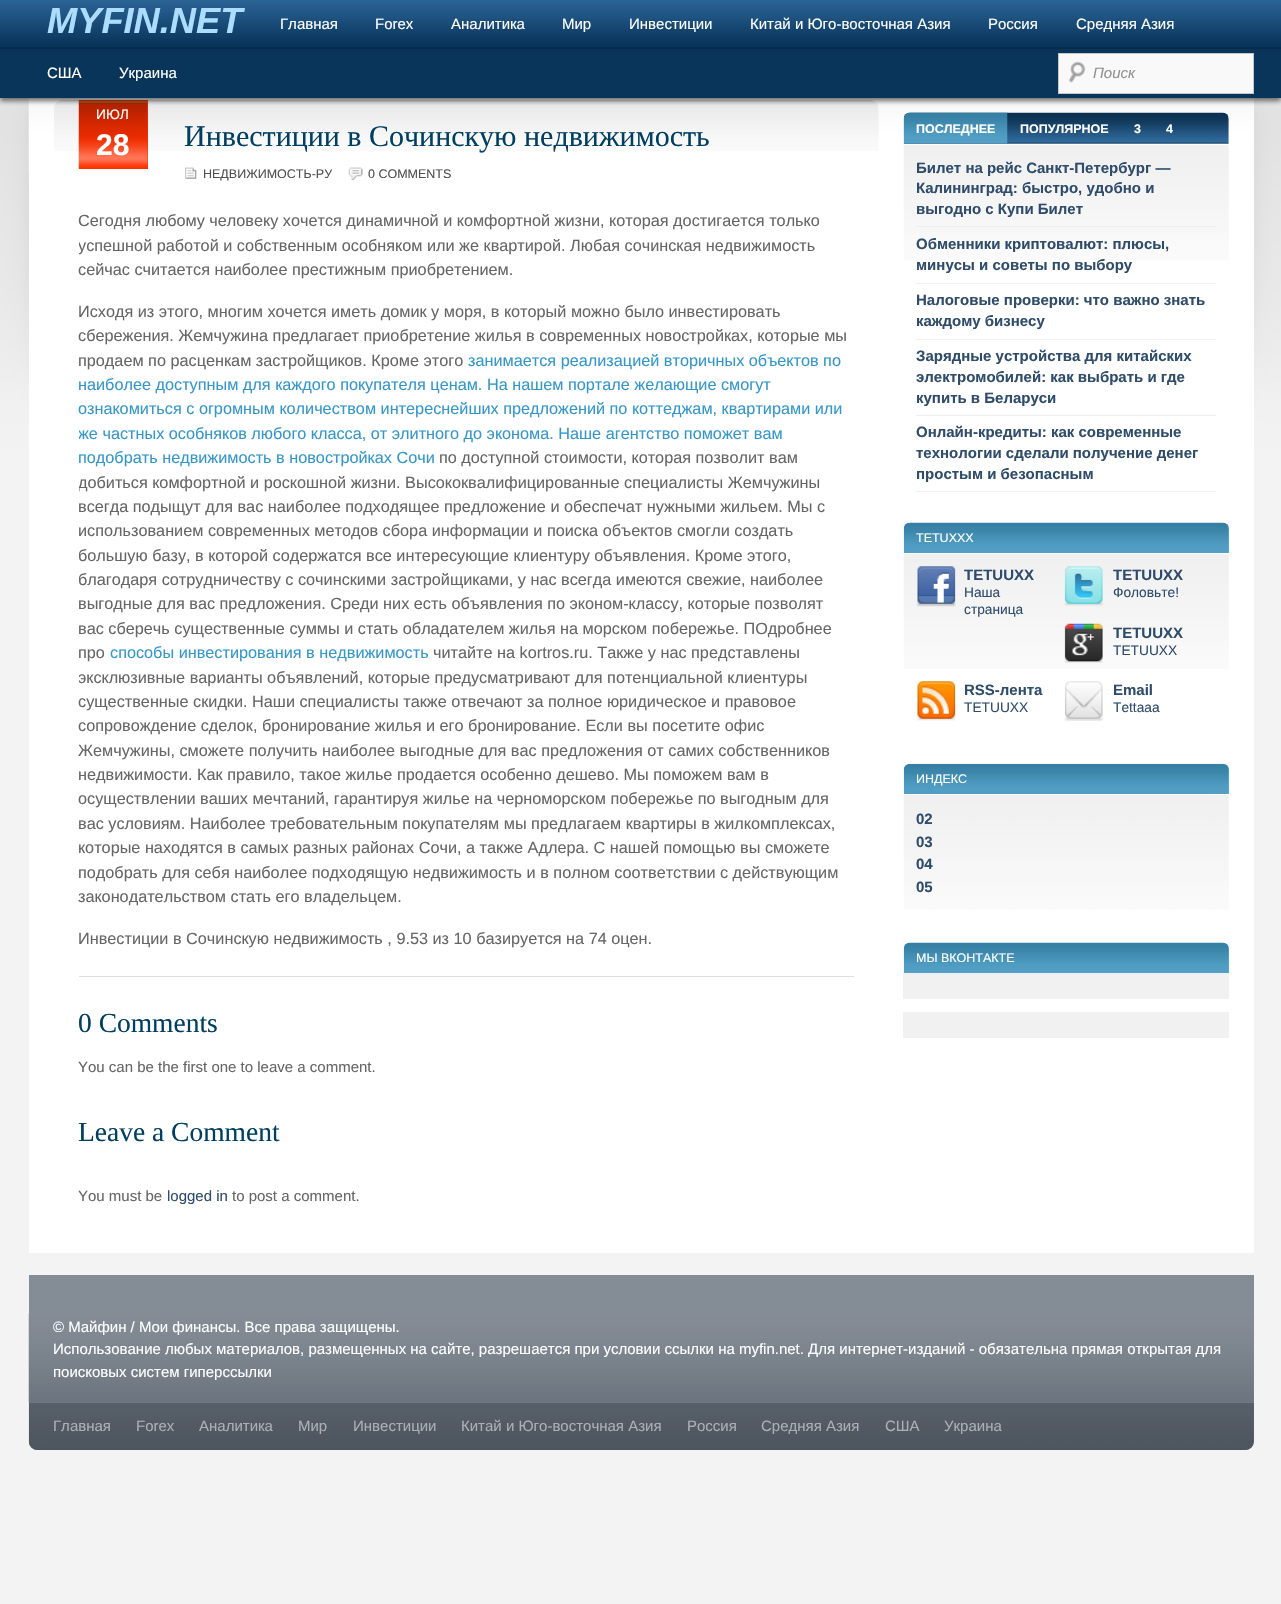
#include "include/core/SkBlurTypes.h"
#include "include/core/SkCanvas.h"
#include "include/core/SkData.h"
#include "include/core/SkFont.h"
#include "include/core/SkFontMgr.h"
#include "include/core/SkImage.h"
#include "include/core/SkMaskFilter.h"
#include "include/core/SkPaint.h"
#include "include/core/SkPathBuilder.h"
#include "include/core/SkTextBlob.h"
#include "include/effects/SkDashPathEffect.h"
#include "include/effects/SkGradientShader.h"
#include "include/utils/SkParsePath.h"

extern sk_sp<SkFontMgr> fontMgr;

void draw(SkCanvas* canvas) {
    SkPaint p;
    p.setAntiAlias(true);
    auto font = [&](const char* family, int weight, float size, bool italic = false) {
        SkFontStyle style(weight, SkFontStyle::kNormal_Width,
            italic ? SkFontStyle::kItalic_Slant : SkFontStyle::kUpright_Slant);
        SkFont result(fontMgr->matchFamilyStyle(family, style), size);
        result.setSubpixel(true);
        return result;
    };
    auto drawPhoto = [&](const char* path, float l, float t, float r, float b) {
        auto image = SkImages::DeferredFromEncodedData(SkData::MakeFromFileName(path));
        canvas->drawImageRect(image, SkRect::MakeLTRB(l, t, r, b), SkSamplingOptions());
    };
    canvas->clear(0xFFF3F3F3);
    drawPhoto("media/3.png", 0, 98, 1281, 621);
    p.setColor(0xFFFFFFFF);
    canvas->drawRect(SkRect::MakeLTRB(29, 98, 1254, 1253), p);
    drawPhoto("media/4.png", 28, 98, 1254, 174);
    drawPhoto("media/5.png", 54, 100, 879, 151);
    p.setColor(0xFFFF3203);
    canvas->drawRect(SkRect::MakeLTRB(79, 100, 148, 169), p);
    drawPhoto("media/6.png", 78, 100, 148, 169);
    p.setColor(0xB3323232);
    p.setMaskFilter(SkMaskFilter::MakeBlur(kNormal_SkBlurStyle, 2.5f));
    canvas->drawRect(SkRect::MakeLTRB(0, 4, 1281, 101), p);
    p.setMaskFilter(nullptr);
    p.setColor(0xFF09355B);
    canvas->drawRect(SkRect::MakeLTRB(0, 48, 1281, 98), p);
    drawPhoto("media/1.png", 0, 0, 1281, 49);
    auto font1 = font("Liberation Sans", 700, 36.25f, true);
    p.setColor(0xFFACDDFF);
    canvas->drawString("MYFIN.NET", 47, 33, font1, p);
    auto font2 = font("Liberation Sans", 400, 15);
    p.setColor(0xFFFFFFFF);
    {
        const struct { const char* s; float x, y; } items[] = {
            {"Главная", 280, 29},
            {"Forex", 375, 29},
            {"Аналитика", 451, 29},
            {"Мир", 562, 29},
            {"Инвестиции", 629, 29},
            {"Китай и Юго-восточная Азия", 750, 29},
            {"Россия", 988, 29},
            {"Средняя Азия", 1076, 29},
            {"США", 47, 78},
            {"Украина", 119, 78},
        };
        for (auto [s, x, y] : items) {
            canvas->drawString(s, x, y, font2, p);
        }
    }
    p.setColor(0xFFF9F9F9);
    canvas->drawRect(SkRect::MakeLTRB(1059, 54, 1253, 93), p);
    drawPhoto("media/2.png", 1068, 61, 1086, 83);
    p.setStyle(SkPaint::kStroke_Style);
    p.setStrokeWidth(1);
    p.setColor(0xFFC7C7C7);
    canvas->drawRect(SkRect::MakeLTRB(1058.5f, 53.5f, 1253.5f, 93.5f), p);
    auto font3 = font("Liberation Sans", 400, 15, true);
    p.setStyle(SkPaint::kFill_Style);
    p.setColor(0xFF919191);
    canvas->drawString("Поиск", 1093, 78, font3, p);
    auto font4 = font("Liberation Sans", 400, 13.75f);
    p.setColor(0xFFFFFFFF);
    canvas->drawString("ИЮЛ", 96, 119, font4, p);
    auto font5 = font("Liberation Sans", 700, 30);
    canvas->drawString("28", 96, 155, font5, p);
    auto font6 = font("Liberation Serif", 400, 30);
    p.setColor(0xFF003F62);
    canvas->drawString("Инвестиции в Сочинскую недвижимость", 184, 146, font6, p);
    drawPhoto("media/7.png", 185, 167, 197, 179);
    auto font7 = font("Liberation Sans", 400, 12.5f);
    p.setColor(0xFF505050);
    canvas->drawString("НЕДВИЖИМОСТЬ-РУ", 203, 178, font7, p);
    drawPhoto("media/8.png", 348, 167, 363, 180);
    canvas->drawString("0 COMMENTS", 368, 178, font7, p);
    auto font8 = font("Liberation Sans", 400, 16.25f);
    p.setColor(0xFF666666);
    canvas->drawString("Сегодня любому человеку хочется динамичной и комфортной жизни, которая достигается только", 78, 226, font8, p);
    canvas->save();
    canvas->clipRect(SkRect::MakeLTRB(79, 209, 854, 951));
    canvas->drawString("успешной работой и собственным особняком или же квартирой. Любая сочинская недвижимость", 78, 251, font8, p);
    canvas->restore();
    {
        const struct { const char* s; float x, y; } items[] = {
            {"сейчас считается наиболее престижным приобретением.", 78, 275},
            {"Исходя из этого, многим хочется иметь домик у моря, в который можно было инвестировать", 78, 317},
            {"сбережения. Жемчужина предлагает приобретение жилья в современных новостройках, которые мы", 78, 341},
            {"продаем по расценкам застройщиков. Кроме этого", 78, 366},
        };
        for (auto [s, x, y] : items) {
            canvas->drawString(s, x, y, font8, p);
        }
    }
    p.setColor(0xFF3397CD);
    {
        const struct { const char* s; float x, y; } items[] = {
            {"занимается реализацией вторичных объектов по", 468, 366},
            {"наиболее доступным для каждого покупателя ценам. На нашем портале желающие смогут", 78, 390},
            {"ознакомиться с огромным количеством интереснейших предложений по коттеджам, квартирами или", 78, 414},
        };
        for (auto [s, x, y] : items) {
            canvas->drawString(s, x, y, font8, p);
        }
    }
    canvas->save();
    canvas->clipRect(SkRect::MakeLTRB(79, 209, 854, 951));
    canvas->drawString("же частных особняков любого класса, от элитного до эконома. Наше агентство поможет вам", 78, 439, font8, p);
    canvas->restore();
    canvas->drawString("подобрать недвижимость в новостройках Сочи", 78, 463, font8, p);
    p.setColor(0xFF666666);
    canvas->drawString("по доступной стоимости, которая позволит вам", 439, 463, font8, p);
    canvas->save();
    canvas->clipRect(SkRect::MakeLTRB(79, 209, 854, 951));
    canvas->drawString("добиться комфортной и роскошной жизни. Высококвалифицированные специалисты Жемчужины", 78, 488, font8, p);
    canvas->restore();
    {
        const struct { const char* s; float x, y; } items[] = {
            {"всегда подыщут для вас наиболее подходящее предложение и обеспечат нужными жильем. Мы с", 78, 512},
            {"использованием современных методов сбора информации и поиска объектов смогли создать", 78, 536},
            {"большую базу, в которой содержатся все интересующие клиентуру объявления. Кроме этого,", 78, 561},
            {"благодаря сотрудничеству с сочинскими застройщиками, у нас всегда имеются свежие, наиболее", 78, 585},
            {"выгодные для вас предложения. Среди них есть объявления по эконом-классу, которые позволят", 78, 609},
            {"вас сберечь существенные суммы и стать обладателем жилья на морском побережье. ПОдробнее", 78, 634},
            {"про", 78, 658},
        };
        for (auto [s, x, y] : items) {
            canvas->drawString(s, x, y, font8, p);
        }
    }
    p.setColor(0xFF3397CD);
    canvas->drawString("способы инвестирования в недвижимость", 110, 658, font8, p);
    p.setColor(0xFF666666);
    canvas->drawString("читайте на kortros.ru. Также у нас представлены", 433, 658, font8, p);
    canvas->save();
    canvas->clipRect(SkRect::MakeLTRB(79, 209, 854, 951));
    canvas->drawString("эксклюзивные варианты объявлений, которые предусматривают для потенциальной клиентуры", 78, 683, font8, p);
    canvas->restore();
    {
        const struct { const char* s; float x, y; } items[] = {
            {"существенные скидки. Наши специалисты также отвечают за полное юридическое и правовое", 78, 707},
            {"сопровождение сделок, бронирование жилья и его бронирование. Если вы посетите офис", 78, 731},
            {"Жемчужины, сможете получить наиболее выгодные для вас предложения от самих собственников", 78, 756},
            {"недвижимости. Как правило, такое жилье продается особенно дешево. Мы поможем вам в", 78, 780},
            {"осуществлении ваших мечтаний, гарантируя жилье на черноморском побережье по выгодным для", 78, 804},
            {"вас условиям. Наиболее требовательным покупателям мы предлагаем квартиры в жилкомплексах,", 78, 829},
            {"которые находятся в самых разных районах Сочи, а также Адлера. С нашей помощью вы сможете", 78, 853},
            {"подобрать для себя наиболее подходящую недвижимость и в полном соответствии с действующим", 78, 878},
            {"законодательством стать его владельцем.", 78, 902},
            {"Инвестиции в Сочинскую недвижимость , 9.53 из 10 базируется на 74 оцен.", 78, 944},
        };
        for (auto [s, x, y] : items) {
            canvas->drawString(s, x, y, font8, p);
        }
    }
    p.setColor(0xFFDFDFDF);
    canvas->drawRect(SkRect::MakeLTRB(79, 976, 854, 977), p);
    auto font9 = font("Liberation Serif", 400, 27.5f);
    p.setColor(0xFF003F62);
    canvas->drawString("0 Comments", 78, 1032, font9, p);
    p.setColor(0xFF666666);
    canvas->drawString("You can be the first one to leave a comment.", 78, 1072, font2, p);
    p.setColor(0xFF003F62);
    canvas->drawString("Leave a Comment", 78, 1141, font9, p);
    p.setColor(0xFF666666);
    canvas->drawString("You must be", 78, 1201, font2, p);
    p.setColor(0xFF2F4C6C);
    canvas->drawString("logged in", 167, 1201, font2, p);
    p.setColor(0xFF666666);
    canvas->drawString("to post a comment.", 232, 1201, font2, p);
    drawPhoto("media/9.png", 903, 112, 1229, 144);
    drawPhoto("media/10.png", 903, 112, 1008, 144);
    auto font10 = font("Liberation Sans", 700, 12.5f);
    p.setColor(0xFFFFFFFF);
    {
        const struct { const char* s; float x, y; } items[] = {
            {"ПОСЛЕДНЕЕ", 916, 133},
            {"ПОПУЛЯРНОЕ", 1020, 133},
            {"3", 1134, 133},
            {"4", 1166, 133},
        };
        for (auto [s, x, y] : items) {
            canvas->drawString(s, x, y, font10, p);
        }
    }
    drawPhoto("media/11.png", 903, 145, 1229, 260);
    p.setColor(0xFFEEEEEE);
    canvas->drawRect(SkRect::MakeLTRB(916, 226, 1216, 227), p);
    auto font11 = font("Liberation Sans", 700, 15);
    p.setColor(0xFF2F4C6C);
    {
        const struct { const char* s; float x, y; } items[] = {
            {"Билет на рейс Санкт-Петербург —", 916, 173},
            {"Калининград: быстро, удобно и", 916, 193},
            {"выгодно с Купи Билет", 916, 214},
        };
        for (auto [s, x, y] : items) {
            canvas->drawString(s, x, y, font11, p);
        }
    }
    p.setColor(0xFFEEEEEE);
    canvas->drawRect(SkRect::MakeLTRB(916, 283, 1216, 284), p);
    p.setColor(0xFF2F4C6C);
    canvas->drawString("Обменники криптовалют: плюсы,", 916, 249, font11, p);
    canvas->drawString("минусы и советы по выбору", 916, 270, font11, p);
    p.setColor(0xFFEEEEEE);
    canvas->drawRect(SkRect::MakeLTRB(916, 339, 1216, 340), p);
    p.setColor(0xFF2F4C6C);
    canvas->drawString("Налоговые проверки: что важно знать", 916, 305, font11, p);
    canvas->drawString("каждому бизнесу", 916, 326, font11, p);
    p.setColor(0xFFEEEEEE);
    canvas->drawRect(SkRect::MakeLTRB(916, 415, 1216, 416), p);
    p.setColor(0xFF2F4C6C);
    {
        const struct { const char* s; float x, y; } items[] = {
            {"Зарядные устройства для китайских", 916, 361},
            {"электромобилей: как выбрать и где", 916, 382},
            {"купить в Беларуси", 916, 403},
        };
        for (auto [s, x, y] : items) {
            canvas->drawString(s, x, y, font11, p);
        }
    }
    p.setColor(0xFFEEEEEE);
    canvas->drawRect(SkRect::MakeLTRB(916, 491, 1216, 492), p);
    p.setColor(0xFF2F4C6C);
    {
        const struct { const char* s; float x, y; } items[] = {
            {"Онлайн-кредиты: как современные", 916, 437},
            {"технологии сделали получение денег", 916, 458},
            {"простым и безопасным", 916, 479},
        };
        for (auto [s, x, y] : items) {
            canvas->drawString(s, x, y, font11, p);
        }
    }
    p.setColor(0xFF5AC3D1);
    canvas->drawPath(SkPathBuilder().moveTo(910, 523).lineTo(1223, 523).cubicTo(1226.5f, 523, 1229, 525.5f, 1229, 529).lineTo(1229, 554).lineTo(904, 554).lineTo(904, 529).cubicTo(904, 525.5f, 906.5f, 523, 910, 523).close().detach(), p);
    drawPhoto("media/12.png", 903, 522, 1229, 554);
    p.setColor(0xFFFFFFFF);
    canvas->drawRect(SkRect::MakeLTRB(904, 553, 1229, 554), p);
    canvas->drawString("TETUXXX", 916, 542, font7, p);
    drawPhoto("media/13.png", 903, 553, 1229, 669);
    drawPhoto("media/14.png", 916, 566, 956, 607);
    p.setColor(0xFF2F4C6C);
    canvas->drawString("TETUUXX", 964, 580, font11, p);
    canvas->drawString("Наша", 964, 597, font4, p);
    canvas->drawString("страница", 964, 614, font4, p);
    drawPhoto("media/15.png", 1064, 566, 1103, 606);
    canvas->drawString("TETUUXX", 1113, 580, font11, p);
    canvas->drawString("Фоловьте!", 1113, 597, font4, p);
    drawPhoto("media/16.png", 1064, 623, 1103, 663);
    canvas->drawString("TETUUXX", 1113, 638, font11, p);
    canvas->drawString("TETUUXX", 1113, 655, font4, p);
    drawPhoto("media/17.png", 917, 681, 956, 721);
    canvas->drawString("RSS-лента", 964, 695, font11, p);
    canvas->drawString("TETUUXX", 964, 712, font4, p);
    drawPhoto("media/18.png", 1064, 681, 1103, 721);
    canvas->drawString("Email", 1113, 695, font11, p);
    canvas->drawString("Tettaaa", 1113, 712, font4, p);
    p.setColor(0xFF5AC3D1);
    canvas->drawPath(SkPathBuilder().moveTo(910, 764).lineTo(1223, 764).cubicTo(1226.5f, 764, 1229, 766.5f, 1229, 770).lineTo(1229, 795).lineTo(904, 795).lineTo(904, 770).cubicTo(904, 766.5f, 906.5f, 764, 910, 764).close().detach(), p);
    drawPhoto("media/19.png", 903, 763, 1229, 795);
    p.setColor(0xFFFFFFFF);
    canvas->drawRect(SkRect::MakeLTRB(904, 794, 1229, 795), p);
    canvas->drawString("ИНДЕКС", 916, 783, font7, p);
    drawPhoto("media/11.png", 903, 795, 1229, 910);
    p.setColor(0xFF2F4C6C);
    {
        const struct { const char* s; float x, y; } items[] = {
            {"02", 916, 824},
            {"03", 916, 847},
            {"04", 916, 869},
            {"05", 916, 892},
        };
        for (auto [s, x, y] : items) {
            canvas->drawString(s, x, y, font11, p);
        }
    }
    p.setColor(0xFF5AC3D1);
    canvas->drawPath(SkPathBuilder().moveTo(910, 943).lineTo(1223, 943).cubicTo(1226.5f, 943, 1229, 945.5f, 1229, 949).lineTo(1229, 974).lineTo(904, 974).lineTo(904, 949).cubicTo(904, 945.5f, 906.5f, 943, 910, 943).close().detach(), p);
    drawPhoto("media/20.png", 903, 942, 1229, 973);
    p.setColor(0xFFFFFFFF);
    canvas->drawString("МЫ ВКОНТАКТЕ", 916, 962, font7, p);
    {
        const struct { float l, t, r, b; SkColor color; } items[] = {
            {903, 973, 1229, 999, 0xFFF1F1F1},
            {903, 1012, 1229, 1038, 0xFFF1F1F1},
            {29, 1275, 1254, 1403, 0xFF848C96},
        };
        for (auto [l, t, r, b, color] : items) {
            p.setColor(color);
            canvas->drawRect(SkRect::MakeLTRB(l, t, r, b), p);
        }
    }
    drawPhoto("media/21.png", 28, 1313, 1254, 1403);
    p.setColor(0xFFFFFFFF);
    {
        const struct { const char* s; float x, y; } items[] = {
            {"© Майфин / Мои финансы. Все права защищены.", 53, 1332},
            {"Использование любых материалов, размещенных на сайте, разрешается при условии ссылки на myfin.net. Для интернет-изданий - обязательна прямая открытая для", 53, 1354},
            {"поисковых систем гиперссылки", 53, 1377},
        };
        for (auto [s, x, y] : items) {
            canvas->drawString(s, x, y, font2, p);
        }
    }
    p.setColor(0xFF58616B);
    canvas->drawPath(SkPathBuilder().moveTo(29, 1403).lineTo(1254, 1403).lineTo(1254, 1441).cubicTo(1254, 1446, 1250, 1450, 1245, 1450).lineTo(38, 1450).cubicTo(33, 1450, 29, 1446, 29, 1441).close().detach(), p);
    drawPhoto("media/22.png", 28, 1402, 1254, 1450);
    p.setColor(0xFFACB0B5);
    {
        const struct { const char* s; float x, y; } items[] = {
            {"Главная", 53, 1431},
            {"Forex", 136, 1431},
            {"Аналитика", 199, 1431},
            {"Мир", 298, 1431},
            {"Инвестиции", 353, 1431},
            {"Китай и Юго-восточная Азия", 461, 1431},
            {"Россия", 687, 1431},
            {"Средняя Азия", 761, 1431},
            {"США", 885, 1431},
            {"Украина", 944, 1431},
        };
        for (auto [s, x, y] : items) {
            canvas->drawString(s, x, y, font2, p);
        }
    }
}
